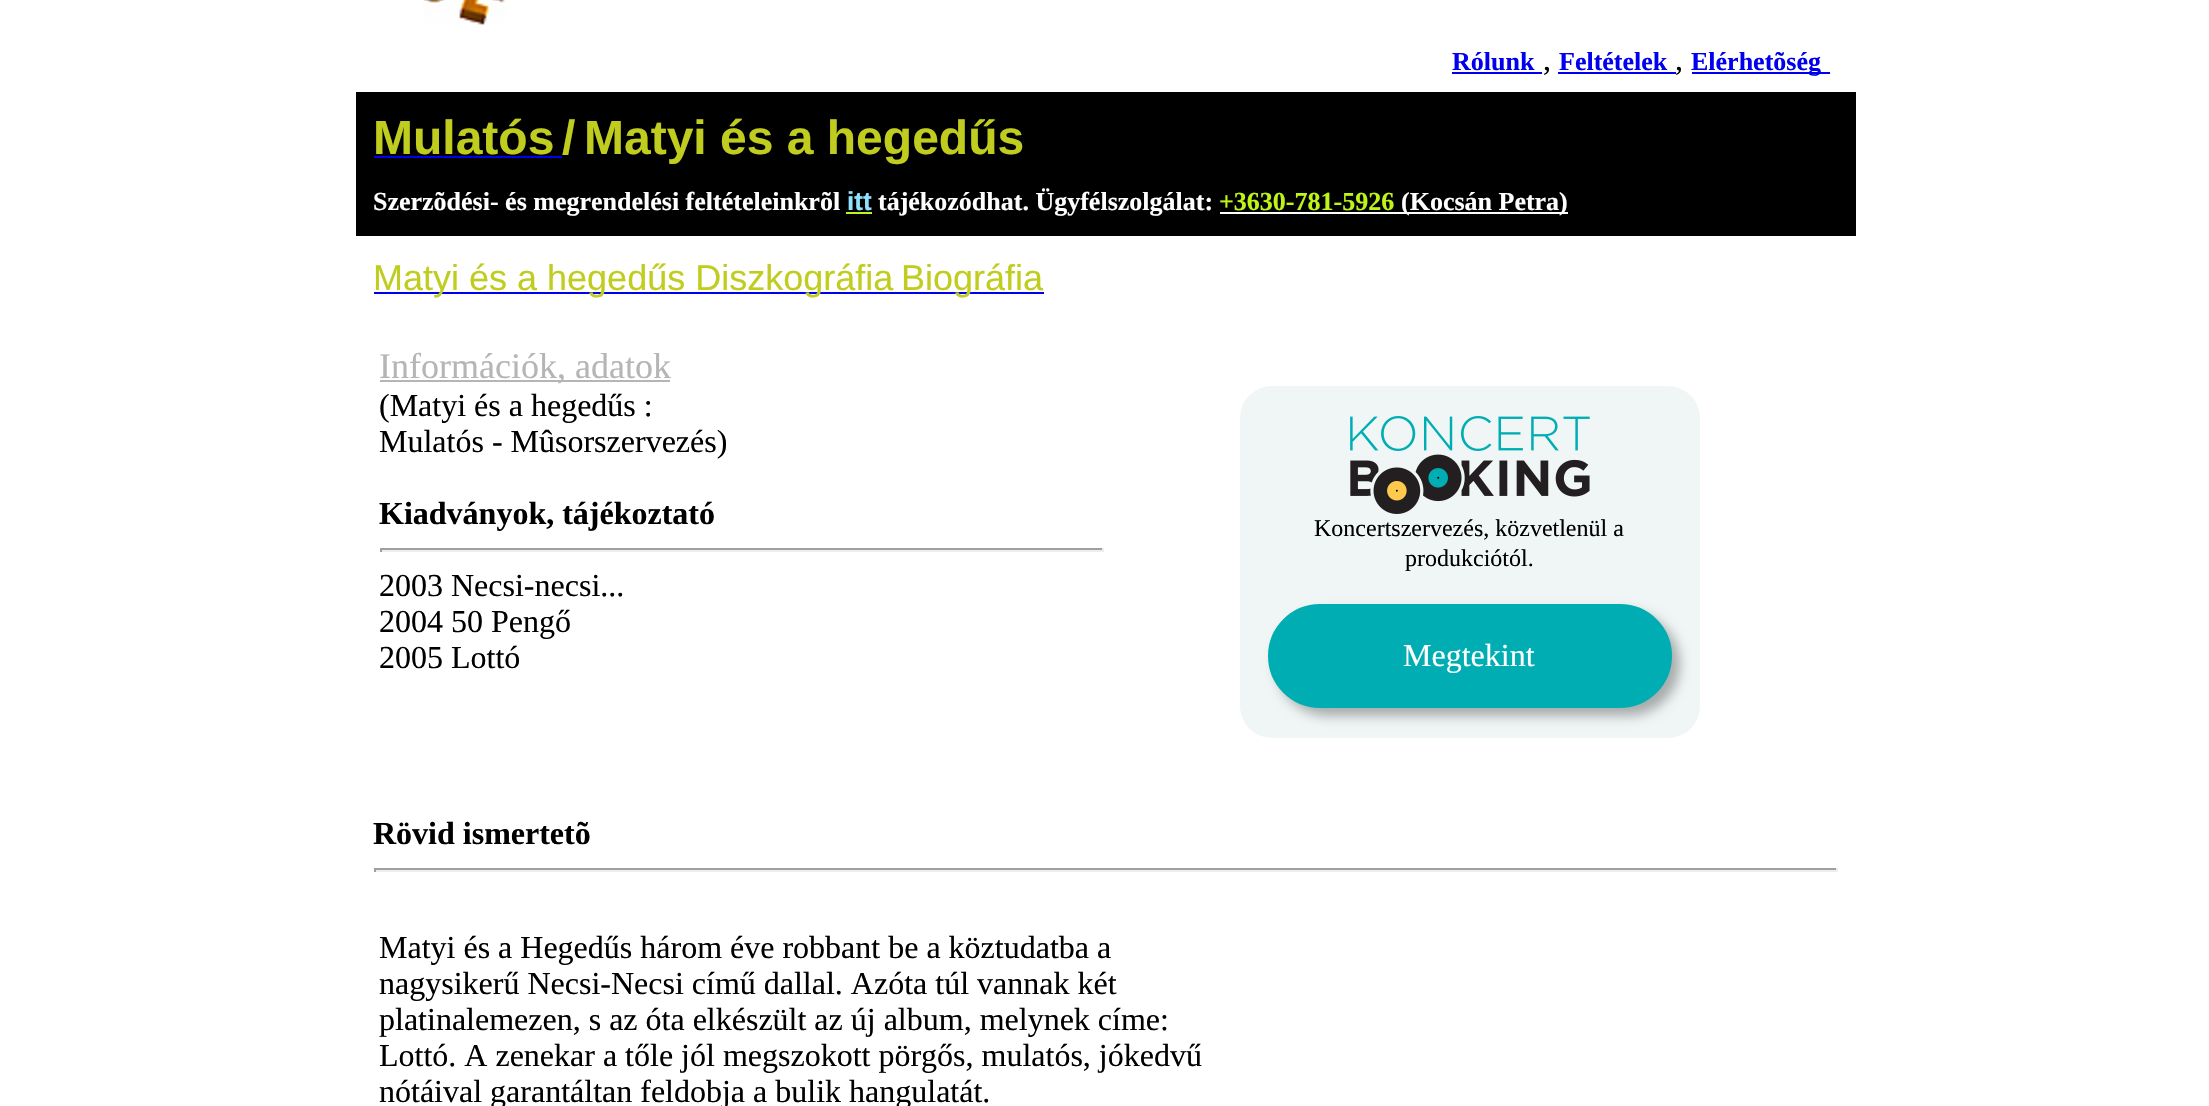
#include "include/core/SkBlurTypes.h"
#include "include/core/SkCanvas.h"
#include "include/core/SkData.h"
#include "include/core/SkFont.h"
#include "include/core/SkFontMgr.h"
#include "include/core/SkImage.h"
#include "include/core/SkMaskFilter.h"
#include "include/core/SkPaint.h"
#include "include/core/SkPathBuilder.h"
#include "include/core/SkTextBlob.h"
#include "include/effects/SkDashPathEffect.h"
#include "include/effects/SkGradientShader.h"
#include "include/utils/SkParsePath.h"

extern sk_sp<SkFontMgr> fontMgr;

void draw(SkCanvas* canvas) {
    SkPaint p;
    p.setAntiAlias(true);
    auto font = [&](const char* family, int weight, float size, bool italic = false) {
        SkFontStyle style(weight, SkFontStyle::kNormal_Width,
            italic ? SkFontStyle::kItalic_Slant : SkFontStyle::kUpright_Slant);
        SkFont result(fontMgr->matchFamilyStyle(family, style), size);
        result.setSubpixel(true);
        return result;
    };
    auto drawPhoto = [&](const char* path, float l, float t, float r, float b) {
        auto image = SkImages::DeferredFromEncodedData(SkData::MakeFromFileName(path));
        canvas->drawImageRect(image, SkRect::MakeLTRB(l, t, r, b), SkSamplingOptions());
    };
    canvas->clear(0xFFFFFFFF);
    drawPhoto("media/1.png", 423, 0, 505, 25);
    auto font1 = font("Liberation Serif", 700, 26);
    p.setColor(0xFF0000EE);
    canvas->drawString("Rólunk", 1452, 70, font1, p);
    canvas->drawRect(SkRect::MakeLTRB(1452, 72, 1542, 74), p);
    auto font2 = font("Liberation Serif", 400, 32);
    p.setColor(0xFF000000);
    canvas->drawString(",", 1543, 70, font2, p);
    p.setColor(0xFF0000EE);
    canvas->drawString("Feltételek", 1559, 70, font1, p);
    canvas->drawRect(SkRect::MakeLTRB(1558, 72, 1676, 74), p);
    p.setColor(0xFF000000);
    canvas->drawString(",", 1675, 70, font2, p);
    p.setColor(0xFF0000EE);
    canvas->drawRect(SkRect::MakeLTRB(1692, 72, 1830, 74), p);
    canvas->drawString("Elérhetõség", 1691, 70, font1, p);
    p.setColor(0xFF000000);
    canvas->drawRect(SkRect::MakeLTRB(356, 92, 1856, 236), p);
    auto font3 = font("Liberation Sans", 700, 48);
    p.setColor(0xFFC0CD1F);
    canvas->drawString("Mulatós", 373, 154, font3, p);
    canvas->drawString("/", 562, 154, font3, p);
    p.setColor(0xFF0000EE);
    canvas->drawRect(SkRect::MakeLTRB(374, 156, 562, 158), p);
    p.setColor(0xFFC0CD1F);
    canvas->drawString("Matyi és a hegedűs", 584, 154, font3, p);
    p.setColor(0xFFFFFFFF);
    canvas->drawString("Szerzõdési- és megrendelési feltételeinkrõl", 373, 210, font1, p);
    auto font4 = font("Liberation Sans", 700, 26);
    p.setColor(0xFF90E2FF);
    canvas->drawString("itt", 847, 210, font4, p);
    p.setColor(0xFFC0F418);
    canvas->drawRect(SkRect::MakeLTRB(846, 212, 872, 214), p);
    p.setColor(0xFFFFFFFF);
    canvas->drawString("tájékozódhat. Ügyfélszolgálat:", 878, 210, font1, p);
    p.setColor(0xFFC0F418);
    canvas->drawString("+3630-781-5926", 1219, 210, font1, p);
    p.setColor(0xFFFFFFFF);
    canvas->drawRect(SkRect::MakeLTRB(1220, 212, 1568, 214), p);
    canvas->drawString("(Kocsán Petra)", 1401, 210, font1, p);
    p.setColor(0xFF0000EE);
    canvas->drawRect(SkRect::MakeLTRB(374, 292, 1044, 294), p);
    auto font5 = font("Liberation Sans", 400, 36);
    p.setColor(0xFFC0CD1F);
    canvas->drawString("Matyi és a hegedűs Diszkográfia", 373, 290, font5, p);
    canvas->drawString("Biográfia", 901, 290, font5, p);
    p.setColor(0xFFB5B5B5);
    canvas->drawRect(SkRect::MakeLTRB(380, 380, 670, 382), p);
    auto font6 = font("Liberation Serif", 400, 36);
    canvas->drawString("Információk, adatok", 379, 378, font6, p);
    p.setColor(0xFF000000);
    canvas->drawString("(Matyi és a hegedűs :", 379, 416, font2, p);
    canvas->drawString("Mulatós - Mûsorszervezés)", 379, 452, font2, p);
    auto font7 = font("Liberation Serif", 700, 32);
    canvas->drawString("Kiadványok, tájékoztató", 379, 524, font7, p);
    {
        const struct { float l, t, r, b; SkColor color; } items[] = {
            {380, 548, 1104, 550, 0xFF9F9F9F},
            {1102, 548, 1104, 552, 0xFFEEEEEE},
            {380, 550, 1104, 552, 0xFFEEEEEE},
            {380, 548, 382, 552, 0xFF9F9F9F},
        };
        for (auto [l, t, r, b, color] : items) {
            p.setColor(color);
            canvas->drawRect(SkRect::MakeLTRB(l, t, r, b), p);
        }
    }
    p.setColor(0xFF000000);
    {
        const struct { const char* s; float x, y; } items[] = {
            {"2003 Necsi-necsi...", 379, 596},
            {"2004 50 Pengő", 379, 632},
            {"2005 Lottó", 379, 668},
        };
        for (auto [s, x, y] : items) {
            canvas->drawString(s, x, y, font2, p);
        }
    }
    p.setColor(0xFFF0F6F6);
    canvas->drawRoundRect(SkRect::MakeLTRB(1240, 386, 1700, 738), 32, 32, p);
    drawPhoto("media/2.png", 1350, 416, 1590, 514);
    auto font8 = font("Liberation Serif", 400, 24);
    p.setColor(0xFF000000);
    canvas->drawString("Koncertszervezés, közvetlenül a", 1314, 536, font8, p);
    canvas->drawString("produkciótól.", 1405, 566, font8, p);
    p.setColor(0x4D000000);
    p.setMaskFilter(SkMaskFilter::MakeBlur(kNormal_SkBlurStyle, 6));
    canvas->drawRoundRect(SkRect::MakeLTRB(1276, 612, 1680, 716), 52, 52, p);
    p.setMaskFilter(nullptr);
    p.setColor(0xFF00ADB3);
    canvas->drawRoundRect(SkRect::MakeLTRB(1269, 605, 1671, 707), 51, 51, p);
    p.setStyle(SkPaint::kStroke_Style);
    p.setStrokeWidth(2);
    canvas->drawRoundRect(SkRect::MakeLTRB(1269, 605, 1671, 707), 51, 51, p);
    p.setStyle(SkPaint::kFill_Style);
    p.setColor(0xFFFFFFFF);
    canvas->drawString("Megtekint", 1403, 666, font2, p);
    p.setColor(0xFF000000);
    canvas->drawString("Rövid ismertetõ", 373, 844, font7, p);
    {
        const struct { float l, t, r, b; SkColor color; } items[] = {
            {374, 868, 1838, 870, 0xFF9F9F9F},
            {1836, 868, 1838, 872, 0xFFEEEEEE},
            {374, 870, 1838, 872, 0xFFEEEEEE},
            {374, 868, 376, 872, 0xFF9F9F9F},
        };
        for (auto [l, t, r, b, color] : items) {
            p.setColor(color);
            canvas->drawRect(SkRect::MakeLTRB(l, t, r, b), p);
        }
    }
    p.setColor(0xFF000000);
    {
        const struct { const char* s; float x, y; } items[] = {
            {"Matyi és a Hegedűs három éve robbant be a köztudatba a", 379, 958},
            {"nagysikerű Necsi-Necsi című dallal. Azóta túl vannak két", 379, 994},
            {"platinalemezen, s az óta elkészült az új album, melynek címe:", 379, 1030},
            {"Lottó. A zenekar a tőle jól megszokott pörgős, mulatós, jókedvű", 379, 1066},
            {"nótáival garantáltan feldobja a bulik hangulatát.", 379, 1102},
        };
        for (auto [s, x, y] : items) {
            canvas->drawString(s, x, y, font2, p);
        }
    }
}
